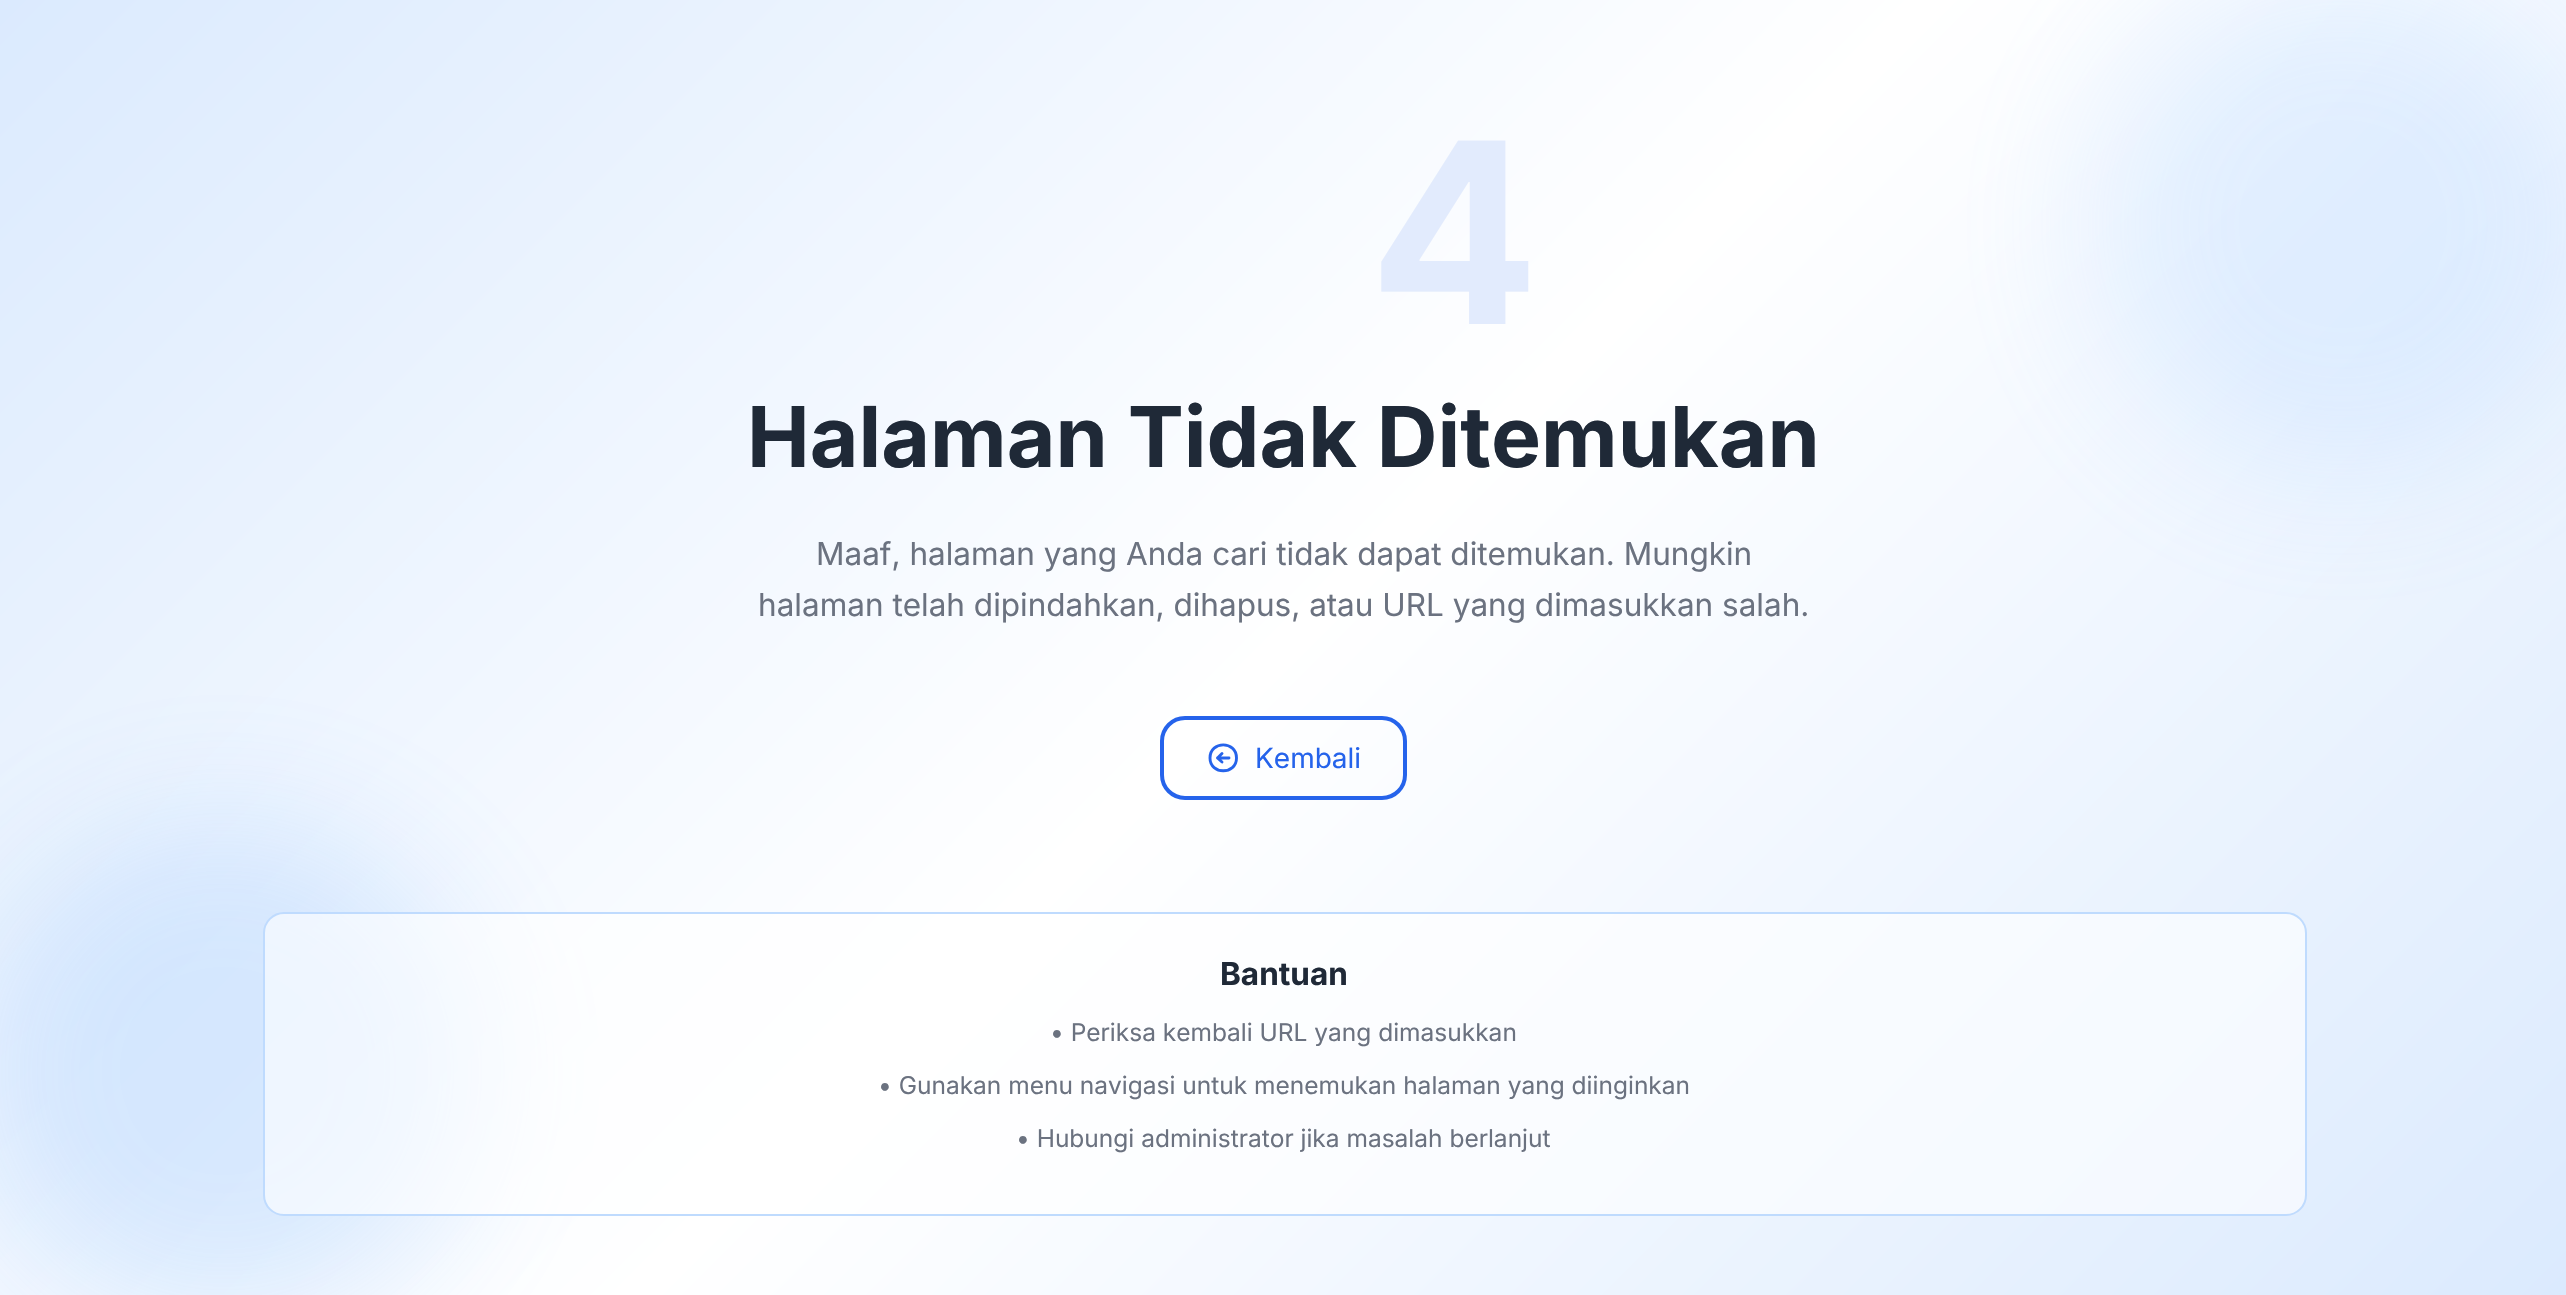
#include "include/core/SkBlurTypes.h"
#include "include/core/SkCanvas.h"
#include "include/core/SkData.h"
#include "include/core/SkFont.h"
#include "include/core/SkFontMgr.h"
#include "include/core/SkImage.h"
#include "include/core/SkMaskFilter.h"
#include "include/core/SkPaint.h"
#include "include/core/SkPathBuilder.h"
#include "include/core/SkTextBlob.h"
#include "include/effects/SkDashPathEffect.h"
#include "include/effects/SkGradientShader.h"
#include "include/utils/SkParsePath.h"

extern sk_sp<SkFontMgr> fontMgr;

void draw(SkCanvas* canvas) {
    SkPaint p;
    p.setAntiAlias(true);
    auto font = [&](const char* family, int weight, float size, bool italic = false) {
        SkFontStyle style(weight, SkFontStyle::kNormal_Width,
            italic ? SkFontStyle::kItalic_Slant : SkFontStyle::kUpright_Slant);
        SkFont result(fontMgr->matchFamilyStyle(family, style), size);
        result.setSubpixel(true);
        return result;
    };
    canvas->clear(0xFFFFFFFF);
    {
        const SkColor colors[] = {0xFFDBEAFE, 0xFFFFFFFF, 0xFFDBEAFE};
        const float stops[] = {0, 0.5f, 1};
        const SkPoint ends[] = {{318, -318}, {2249, 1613}};
        p.setShader(SkGradientShader::MakeLinear(ends, colors, stops, 3, SkTileMode::kClamp));
        p.setAlpha(255);
    }
    canvas->drawRect(SkRect::MakeLTRB(0, 0, 2566, 1295), p);
    p.setShader(nullptr);
    p.setColor(0x3393C5FD);
    p.setMaskFilter(SkMaskFilter::MakeBlur(kNormal_SkBlurStyle, 70));
    canvas->drawRoundRect(SkRect::MakeLTRB(2091, -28, 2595, 476), 252, 252, p);
    p.setMaskFilter(nullptr);
    p.setColor(0x3360A5FA);
    p.setMaskFilter(SkMaskFilter::MakeBlur(kNormal_SkBlurStyle, 70));
    canvas->drawRoundRect(SkRect::MakeLTRB(-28, 819, 476, 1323), 252, 252, p);
    p.setMaskFilter(nullptr);
    auto font1 = font("Inter", 700, 252);
    p.setColor(0xFFE2EBFD);
    canvas->drawString("4", 1369, 324, font1, p);
    auto font2 = font("Inter", 700, 84);
    p.setColor(0xFF1F2937);
    canvas->drawString("Halaman Tidak Ditemukan", 747, 467, font2, p);
    auto font3 = font("Inter", 400, 31.5f);
    p.setColor(0xFF6B7280);
    canvas->drawString("Maaf, halaman yang Anda cari tidak dapat ditemukan. Mungkin", 816, 565, font3, p);
    canvas->drawString("halaman telah dipindahkan, dihapus, atau URL yang dimasukkan salah.", 758, 616, font3, p);
    p.setStyle(SkPaint::kStroke_Style);
    p.setStrokeWidth(4);
    p.setColor(0xFF2563EB);
    canvas->drawRoundRect(SkRect::MakeLTRB(1162, 718, 1405, 798), 23, 23, p);
    p.setStrokeWidth(2.9f);
    p.setStrokeCap(SkPaint::kRound_Cap);
    p.setStrokeJoin(SkPaint::kRound_Join);
    canvas->drawPath(SkPathBuilder().moveTo(1222, 762).lineTo(1217.5f, 758).moveTo(1217.5f, 758).lineTo(1222, 753.5f).moveTo(1217.5f, 758).lineTo(1229, 758).moveTo(1210, 758).cubicTo(1210, 740.5f, 1236.5f, 740.5f, 1236.5f, 758).cubicTo(1236.5f, 775, 1210, 775, 1210, 758).close().detach(), p);
    auto font4 = font("Inter", 400, 28);
    p.setStyle(SkPaint::kFill_Style);
    canvas->drawString("Kembali", 1255, 768, font4, p);
    p.setColor(0x99FFFFFF);
    canvas->drawRoundRect(SkRect::MakeLTRB(264, 913, 2306, 1215), 20, 20, p);
    p.setStyle(SkPaint::kStroke_Style);
    p.setStrokeWidth(2);
    p.setStrokeCap(SkPaint::kButt_Cap);
    p.setStrokeJoin(SkPaint::kMiter_Join);
    p.setColor(0xFFBFDBFE);
    canvas->drawRoundRect(SkRect::MakeLTRB(264, 913, 2306, 1215), 20, 20, p);
    auto font5 = font("Inter", 700, 31.5f);
    p.setStyle(SkPaint::kFill_Style);
    p.setColor(0xFF1F2937);
    canvas->drawString("Bantuan", 1220, 985, font5, p);
    auto font6 = font("Inter", 400, 24.5f);
    p.setColor(0xFF6B7280);
    {
        const struct { const char* s; float x, y; } items[] = {
            {"• Periksa kembali URL yang dimasukkan", 1050, 1041},
            {"• Gunakan menu navigasi untuk menemukan halaman yang diinginkan", 878, 1094},
            {"• Hubungi administrator jika masalah berlanjut", 1016, 1147},
        };
        for (auto [s, x, y] : items) {
            canvas->drawString(s, x, y, font6, p);
        }
    }
}
